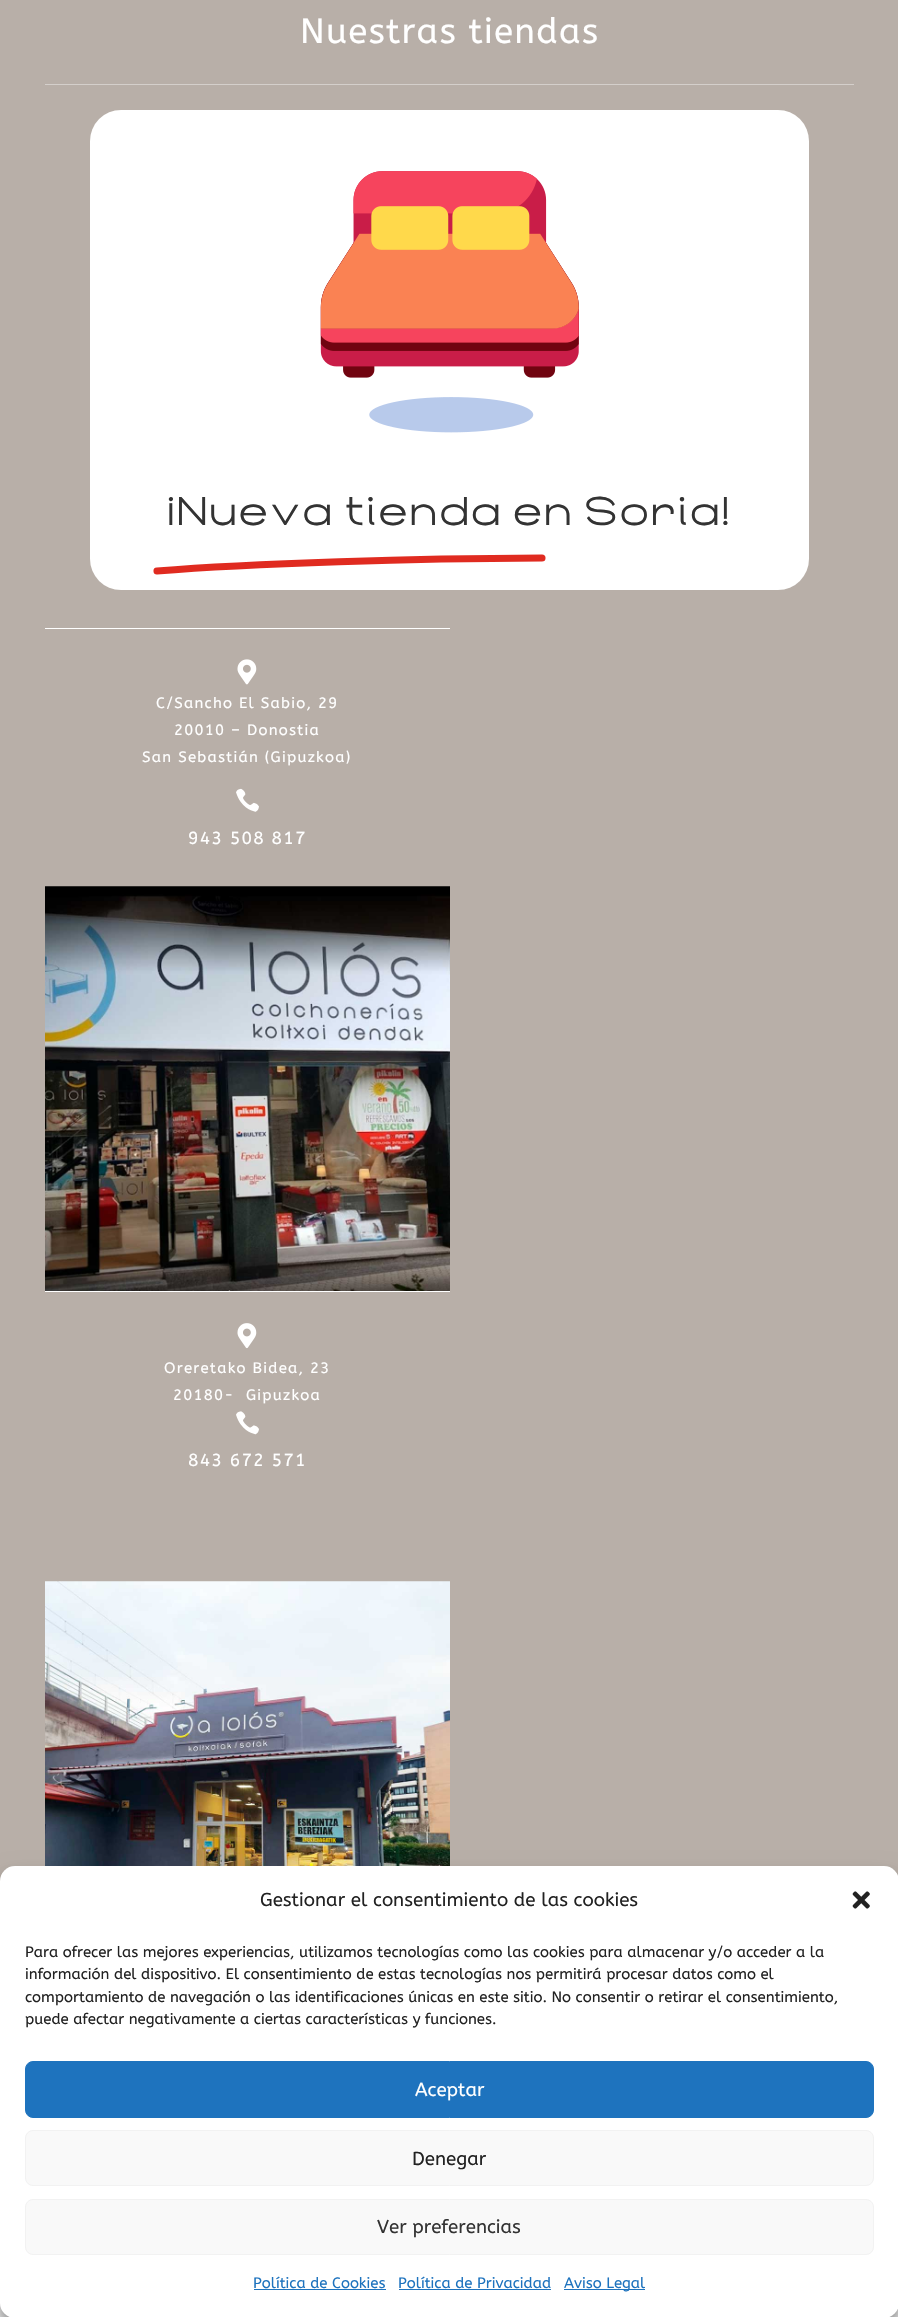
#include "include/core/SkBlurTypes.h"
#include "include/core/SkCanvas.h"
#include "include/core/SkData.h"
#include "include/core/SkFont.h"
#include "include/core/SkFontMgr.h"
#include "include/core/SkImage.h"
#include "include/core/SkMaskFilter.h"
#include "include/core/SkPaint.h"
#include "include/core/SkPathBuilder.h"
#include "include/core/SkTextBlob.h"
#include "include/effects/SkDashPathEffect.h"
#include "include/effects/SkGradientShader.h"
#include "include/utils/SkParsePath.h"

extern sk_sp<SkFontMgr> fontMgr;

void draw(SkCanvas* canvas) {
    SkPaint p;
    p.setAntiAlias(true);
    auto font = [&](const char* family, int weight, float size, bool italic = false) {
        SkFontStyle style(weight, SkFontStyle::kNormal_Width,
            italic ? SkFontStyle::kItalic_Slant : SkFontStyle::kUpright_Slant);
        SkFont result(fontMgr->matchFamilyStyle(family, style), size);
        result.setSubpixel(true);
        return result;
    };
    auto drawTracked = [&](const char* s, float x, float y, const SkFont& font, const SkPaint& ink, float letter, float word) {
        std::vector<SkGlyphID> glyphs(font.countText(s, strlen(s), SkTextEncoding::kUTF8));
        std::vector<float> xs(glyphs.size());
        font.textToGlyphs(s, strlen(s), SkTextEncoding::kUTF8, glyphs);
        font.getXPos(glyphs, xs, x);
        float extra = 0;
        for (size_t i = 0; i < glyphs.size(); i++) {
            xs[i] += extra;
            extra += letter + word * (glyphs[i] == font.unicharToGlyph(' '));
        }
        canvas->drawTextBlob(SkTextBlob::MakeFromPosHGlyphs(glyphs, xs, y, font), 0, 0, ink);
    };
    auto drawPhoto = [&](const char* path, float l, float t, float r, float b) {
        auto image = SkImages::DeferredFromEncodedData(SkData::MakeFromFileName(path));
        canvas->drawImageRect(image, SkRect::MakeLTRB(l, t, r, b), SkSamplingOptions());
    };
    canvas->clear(0xFFB8AFA8);
    p.setColor(0xFFD4CFCB);
    canvas->drawRect(SkRect::MakeLTRB(45, 84, 854, 85), p);
    auto font1 = font("ABeeZee", 400, 35);
    p.setColor(0xFFFFFFFF);
    drawTracked("Nuestras tiendas", 300, 43, font1, p, 1.25f, 0);
    canvas->drawRoundRect(SkRect::MakeLTRB(90, 110, 809, 590), 31, 31, p);
    drawPhoto("media/1.png", 320, 171, 579, 433);
    auto font2 = font("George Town", 300, 40);
    p.setColor(0xFF333333);
    drawTracked("¡Nueva tienda en Soria!", 167, 525, font2, p, 2.5f, 0);
    p.setStyle(SkPaint::kStroke_Style);
    p.setStrokeWidth(7.1f);
    p.setStrokeCap(SkPaint::kRound_Cap);
    p.setColor(0xFFE02B20);
    canvas->drawPath(SkPathBuilder().moveTo(157, 571).cubicTo(253.5f, 563, 417.5f, 558.5f, 542, 558).detach(), p);
    p.setStyle(SkPaint::kFill_Style);
    p.setColor(0xFFFFFFFF);
    canvas->drawRect(SkRect::MakeLTRB(45, 628, 450, 629), p);
    drawPhoto("media/2.png", 237, 659, 257, 685);
    auto font3 = font("ABeeZee", 400, 15);
    {
        const struct { const char* s; float x, y; } items[] = {
            {"C/Sancho El Sabio, 29", 156, 708},
            {"20010 – Donostia", 174, 735},
            {"San Sebastián (Gipuzkoa)", 142, 762},
        };
        for (auto [s, x, y] : items) {
            drawTracked(s, x, y, font3, p, 1.25f, 0);
        }
    }
    drawPhoto("media/3.png", 236, 788, 259, 812);
    auto font4 = font("ABeeZee", 400, 17.5f);
    drawTracked("943 508 817", 188, 844, font4, p, 1.25f, 0);
    drawPhoto("media/4.png", 45, 886, 450, 1291);
    canvas->drawRect(SkRect::MakeLTRB(45, 1291, 450, 1292), p);
    drawPhoto("media/5.png", 237, 1323, 257, 1349);
    drawTracked("Oreretako Bidea, 23", 164, 1373, font3, p, 1.25f, 0);
    drawTracked("20180-  Gipuzkoa", 173, 1400, font3, p, 1.25f, 0);
    drawPhoto("media/6.png", 236, 1411, 259, 1435);
    drawTracked("843 672 571", 188, 1466, font4, p, 1.25f, 0);
    drawPhoto("media/7.png", 45, 1581, 450, 1866);
    p.setColor(0xFFEDEDED);
    canvas->drawRect(SkRect::MakeLTRB(0, 2303, 898, 2317), p);
    p.setColor(0x3B000000);
    p.setMaskFilter(SkMaskFilter::MakeBlur(kNormal_SkBlurStyle, 4));
    canvas->drawRoundRect(SkRect::MakeLTRB(0, 1874, 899, 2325), 15, 15, p);
    p.setMaskFilter(nullptr);
    p.setColor(0x30000000);
    p.setMaskFilter(SkMaskFilter::MakeBlur(kNormal_SkBlurStyle, 12.5f));
    canvas->drawRoundRect(SkRect::MakeLTRB(0, 1879, 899, 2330), 15, 15, p);
    p.setMaskFilter(nullptr);
    p.setColor(0xFFFFFFFF);
    canvas->drawRoundRect(SkRect::MakeLTRB(0, 1866, 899, 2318), 15, 15, p);
    auto font5 = font("ABeeZee", 400, 18.75f);
    p.setColor(0xFF222222);
    canvas->drawString("Gestionar el consentimiento de las cookies", 260, 1906, font5, p);
    drawPhoto("media/8.png", 852, 1891, 870, 1909);
    {
        const struct { const char* s; float x, y; } items[] = {
            {"Para ofrecer las mejores experiencias, utilizamos tecnologías como las cookies para almacenar y/o acceder a la", 25, 1957},
            {"información del dispositivo. El consentimiento de estas tecnologías nos permitirá procesar datos como el", 25, 1979},
            {"comportamiento de navegación o las identificaciones únicas en este sitio. No consentir o retirar el consentimiento,", 25, 2002},
            {"puede afectar negativamente a ciertas características y funciones.", 25, 2024},
        };
        for (auto [s, x, y] : items) {
            canvas->drawString(s, x, y, font3, p);
        }
    }
    p.setColor(0xFF1E73BE);
    canvas->drawRoundRect(SkRect::MakeLTRB(25.5f, 2061.5f, 873.5f, 2117.5f), 7.5f, 7.5f, p);
    p.setStyle(SkPaint::kStroke_Style);
    p.setStrokeWidth(1);
    p.setStrokeCap(SkPaint::kButt_Cap);
    canvas->drawRoundRect(SkRect::MakeLTRB(25.5f, 2061.5f, 873.5f, 2117.5f), 7.5f, 7.5f, p);
    p.setStyle(SkPaint::kFill_Style);
    p.setColor(0xFFFFFFFF);
    canvas->drawString("Aceptar", 415, 2096, font5, p);
    p.setColor(0xFFF9F9F9);
    canvas->drawRoundRect(SkRect::MakeLTRB(25.5f, 2130.5f, 873.5f, 2185.5f), 7.5f, 7.5f, p);
    p.setStyle(SkPaint::kStroke_Style);
    p.setColor(0xFFF2F2F2);
    canvas->drawRoundRect(SkRect::MakeLTRB(25.5f, 2130.5f, 873.5f, 2185.5f), 7.5f, 7.5f, p);
    p.setStyle(SkPaint::kFill_Style);
    p.setColor(0xFF222222);
    canvas->drawString("Denegar", 412, 2165, font5, p);
    p.setColor(0xFFF9F9F9);
    canvas->drawRoundRect(SkRect::MakeLTRB(25.5f, 2199.5f, 873.5f, 2254.5f), 7.5f, 7.5f, p);
    p.setStyle(SkPaint::kStroke_Style);
    p.setColor(0xFFF2F2F2);
    canvas->drawRoundRect(SkRect::MakeLTRB(25.5f, 2199.5f, 873.5f, 2254.5f), 7.5f, 7.5f, p);
    p.setStyle(SkPaint::kFill_Style);
    p.setColor(0xFF333333);
    canvas->drawString("Ver preferencias", 377, 2233, font5, p);
    p.setColor(0xFF1E73BE);
    canvas->drawString("Política de Cookies", 253, 2288, font3, p);
    canvas->drawRect(SkRect::MakeLTRB(254, 2289, 386, 2290), p);
    canvas->drawString("Política de Privacidad", 398, 2288, font3, p);
    canvas->drawRect(SkRect::MakeLTRB(399, 2289, 551, 2290), p);
    canvas->drawRect(SkRect::MakeLTRB(564, 2289, 645, 2290), p);
    canvas->drawString("Aviso Legal", 564, 2288, font3, p);
}
